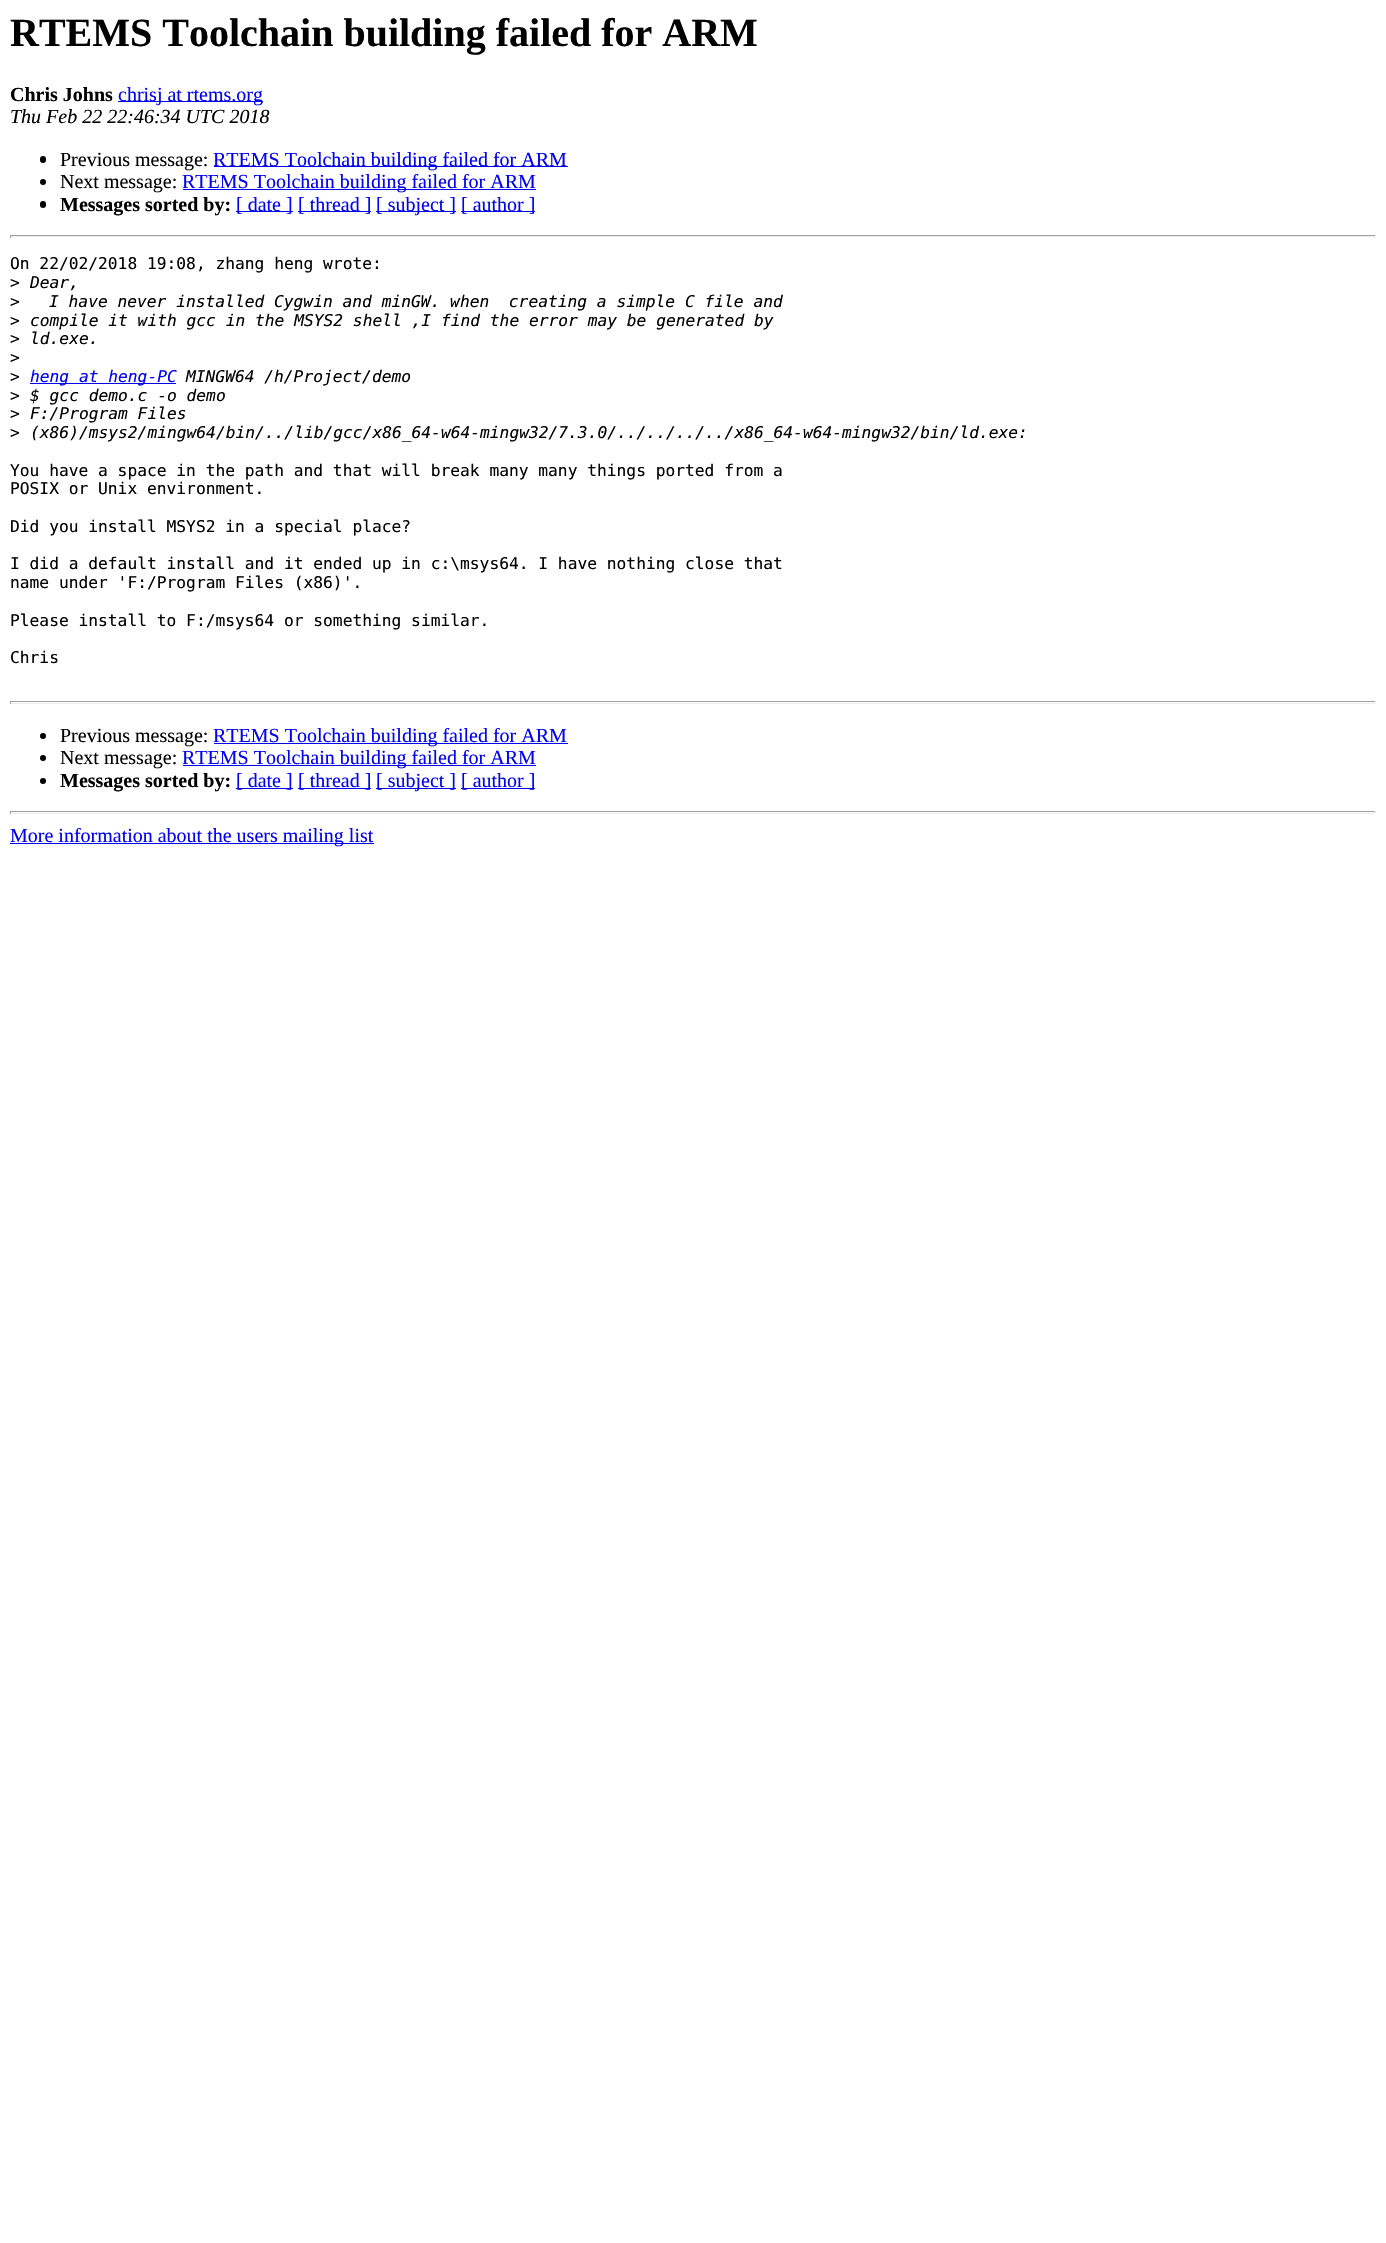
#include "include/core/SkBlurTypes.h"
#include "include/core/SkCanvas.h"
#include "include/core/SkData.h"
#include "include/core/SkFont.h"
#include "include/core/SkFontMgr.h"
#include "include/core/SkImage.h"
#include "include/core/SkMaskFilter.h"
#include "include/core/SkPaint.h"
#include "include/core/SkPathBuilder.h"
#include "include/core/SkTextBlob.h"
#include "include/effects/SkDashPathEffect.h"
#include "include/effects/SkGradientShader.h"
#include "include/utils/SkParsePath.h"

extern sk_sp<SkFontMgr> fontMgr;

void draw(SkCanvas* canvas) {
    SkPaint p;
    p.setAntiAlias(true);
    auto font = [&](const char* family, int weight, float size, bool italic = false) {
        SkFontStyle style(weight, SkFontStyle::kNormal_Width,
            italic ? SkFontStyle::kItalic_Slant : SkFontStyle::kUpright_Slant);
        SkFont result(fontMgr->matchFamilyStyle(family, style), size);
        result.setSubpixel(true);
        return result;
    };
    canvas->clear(0xFFFFFFFF);
    auto font1 = font("Liberation Serif", 700, 40);
    p.setColor(0xFF000000);
    canvas->drawString("RTEMS Toolchain building failed for ARM", 10, 46, font1, p);
    auto font2 = font("Liberation Serif", 700, 20);
    canvas->drawString("Chris Johns", 10, 101, font2, p);
    p.setColor(0xFF0000EE);
    canvas->drawRect(SkRect::MakeLTRB(118, 101, 263, 102), p);
    auto font3 = font("Liberation Serif", 400, 20);
    canvas->drawString("chrisj at rtems.org", 118, 101, font3, p);
    auto font4 = font("Liberation Serif", 400, 20, true);
    p.setColor(0xFF000000);
    canvas->drawString("Thu Feb 22 22:46:34 UTC 2018", 10, 123, font4, p);
    canvas->drawRoundRect(SkRect::MakeLTRB(40, 156, 46, 163), 3, 3, p);
    canvas->drawString("Previous message:", 60, 166, font3, p);
    p.setColor(0xFF0000EE);
    canvas->drawRect(SkRect::MakeLTRB(214, 166, 568, 167), p);
    canvas->drawString("RTEMS Toolchain building failed for ARM", 213, 166, font3, p);
    p.setColor(0xFF000000);
    canvas->drawCircle(43, 182, 3, p);
    canvas->drawString("Next message:", 60, 188, font3, p);
    p.setColor(0xFF0000EE);
    canvas->drawRect(SkRect::MakeLTRB(183, 189, 536, 190), p);
    canvas->drawString("RTEMS Toolchain building failed for ARM", 182, 188, font3, p);
    p.setColor(0xFF000000);
    canvas->drawRoundRect(SkRect::MakeLTRB(40, 201, 46, 208), 3, 3, p);
    canvas->drawString("Messages sorted by:", 60, 211, font2, p);
    p.setColor(0xFF0000EE);
    canvas->drawRect(SkRect::MakeLTRB(236, 211, 293, 212), p);
    canvas->drawString("[ date ]", 236, 211, font3, p);
    canvas->drawRect(SkRect::MakeLTRB(298, 211, 371, 212), p);
    canvas->drawString("[ thread ]", 298, 211, font3, p);
    canvas->drawRect(SkRect::MakeLTRB(376, 211, 456, 212), p);
    canvas->drawString("[ subject ]", 376, 211, font3, p);
    canvas->drawRect(SkRect::MakeLTRB(461, 211, 535, 212), p);
    canvas->drawString("[ author ]", 461, 211, font3, p);
    {
        const struct { float l, t, r, b; SkColor color; } items[] = {
            {10, 235, 1376, 236, 0xFF9F9F9F},
            {1375, 235, 1376, 238, 0xFFEEEEEE},
            {10, 236, 1376, 237, 0xFFEEEEEE},
            {10, 235, 11, 238, 0xFF9F9F9F},
        };
        for (auto [l, t, r, b, color] : items) {
            p.setColor(color);
            canvas->drawRect(SkRect::MakeLTRB(l, t, r, b), p);
        }
    }
    auto font5 = font("DejaVu Sans Mono", 400, 16.25f);
    p.setColor(0xFF000000);
    canvas->drawString("On 22/02/2018 19:08, zhang heng wrote:", 10, 269, font5, p);
    canvas->drawString(">", 10, 288, font5, p);
    auto font6 = font("DejaVu Sans Mono", 400, 16.25f, true);
    canvas->drawString("Dear,", 30, 288, font6, p);
    canvas->drawString(">", 10, 307, font5, p);
    canvas->drawString("I have never installed Cygwin and minGW. when  creating a simple C file and", 49, 307, font6, p);
    canvas->drawString(">", 10, 326, font5, p);
    canvas->drawString("compile it with gcc in the MSYS2 shell ,I find the error may be generated by", 30, 326, font6, p);
    canvas->drawString(">", 10, 344, font5, p);
    canvas->drawString("ld.exe.", 30, 344, font6, p);
    canvas->drawString(">", 10, 363, font5, p);
    canvas->drawString(">", 10, 382, font5, p);
    p.setColor(0xFF0000EE);
    canvas->drawRect(SkRect::MakeLTRB(30, 383, 176, 384), p);
    canvas->drawString("heng at heng-PC", 30, 382, font6, p);
    p.setColor(0xFF000000);
    canvas->drawString("MINGW64 /h/Project/demo", 186, 382, font6, p);
    canvas->drawString(">", 10, 401, font5, p);
    canvas->drawString("$ gcc demo.c -o demo", 30, 401, font6, p);
    canvas->drawString(">", 10, 419, font5, p);
    canvas->drawString("F:/Program Files", 30, 419, font6, p);
    canvas->drawString(">", 10, 438, font5, p);
    canvas->drawString("(x86)/msys2/mingw64/bin/../lib/gcc/x86_64-w64-mingw32/7.3.0/../../../../x86_64-w64-mingw32/bin/ld.exe:", 30, 438, font6, p);
    {
        const struct { const char* s; float x, y; } items[] = {
            {"You have a space in the path and that will break many many things ported from a", 10, 476},
            {"POSIX or Unix environment.", 10, 494},
            {"Did you install MSYS2 in a special place?", 10, 532},
            {"I did a default install and it ended up in c:\\msys64. I have nothing close that", 10, 569},
            {"name under 'F:/Program Files (x86)'.", 10, 588},
            {"Please install to F:/msys64 or something similar.", 10, 626},
            {"Chris", 10, 663},
        };
        for (auto [s, x, y] : items) {
            canvas->drawString(s, x, y, font5, p);
        }
    }
    {
        const struct { float l, t, r, b; SkColor color; } items[] = {
            {10, 701, 1376, 702, 0xFF9F9F9F},
            {1375, 701, 1376, 704, 0xFFEEEEEE},
            {10, 703, 1376, 704, 0xFFEEEEEE},
            {10, 701, 11, 704, 0xFF9F9F9F},
        };
        for (auto [l, t, r, b, color] : items) {
            p.setColor(color);
            canvas->drawRect(SkRect::MakeLTRB(l, t, r, b), p);
        }
    }
    p.setColor(0xFF000000);
    canvas->drawCircle(43, 736, 3, p);
    canvas->drawString("Previous message:", 60, 742, font3, p);
    p.setColor(0xFF0000EE);
    canvas->drawRect(SkRect::MakeLTRB(214, 743, 568, 744), p);
    canvas->drawString("RTEMS Toolchain building failed for ARM", 213, 742, font3, p);
    p.setColor(0xFF000000);
    canvas->drawCircle(43, 758, 3, p);
    canvas->drawString("Next message:", 60, 764, font3, p);
    p.setColor(0xFF0000EE);
    canvas->drawRect(SkRect::MakeLTRB(183, 765, 536, 766), p);
    canvas->drawString("RTEMS Toolchain building failed for ARM", 182, 764, font3, p);
    p.setColor(0xFF000000);
    canvas->drawCircle(43, 781, 3, p);
    canvas->drawString("Messages sorted by:", 60, 787, font2, p);
    p.setColor(0xFF0000EE);
    canvas->drawRect(SkRect::MakeLTRB(236, 788, 293, 789), p);
    canvas->drawString("[ date ]", 236, 787, font3, p);
    canvas->drawRect(SkRect::MakeLTRB(298, 788, 371, 789), p);
    canvas->drawString("[ thread ]", 298, 787, font3, p);
    canvas->drawRect(SkRect::MakeLTRB(376, 788, 456, 789), p);
    canvas->drawString("[ subject ]", 376, 787, font3, p);
    canvas->drawRect(SkRect::MakeLTRB(461, 788, 535, 789), p);
    canvas->drawString("[ author ]", 461, 787, font3, p);
    {
        const struct { float l, t, r, b; SkColor color; } items[] = {
            {10, 811, 1376, 812, 0xFF9F9F9F},
            {1375, 811, 1376, 814, 0xFFEEEEEE},
            {10, 813, 1376, 814, 0xFFEEEEEE},
            {10, 811, 11, 814, 0xFF9F9F9F},
            {10, 843, 374, 844, 0xFF0000EE},
        };
        for (auto [l, t, r, b, color] : items) {
            p.setColor(color);
            canvas->drawRect(SkRect::MakeLTRB(l, t, r, b), p);
        }
    }
    canvas->drawString("More information about the users mailing list", 10, 842, font3, p);
}
